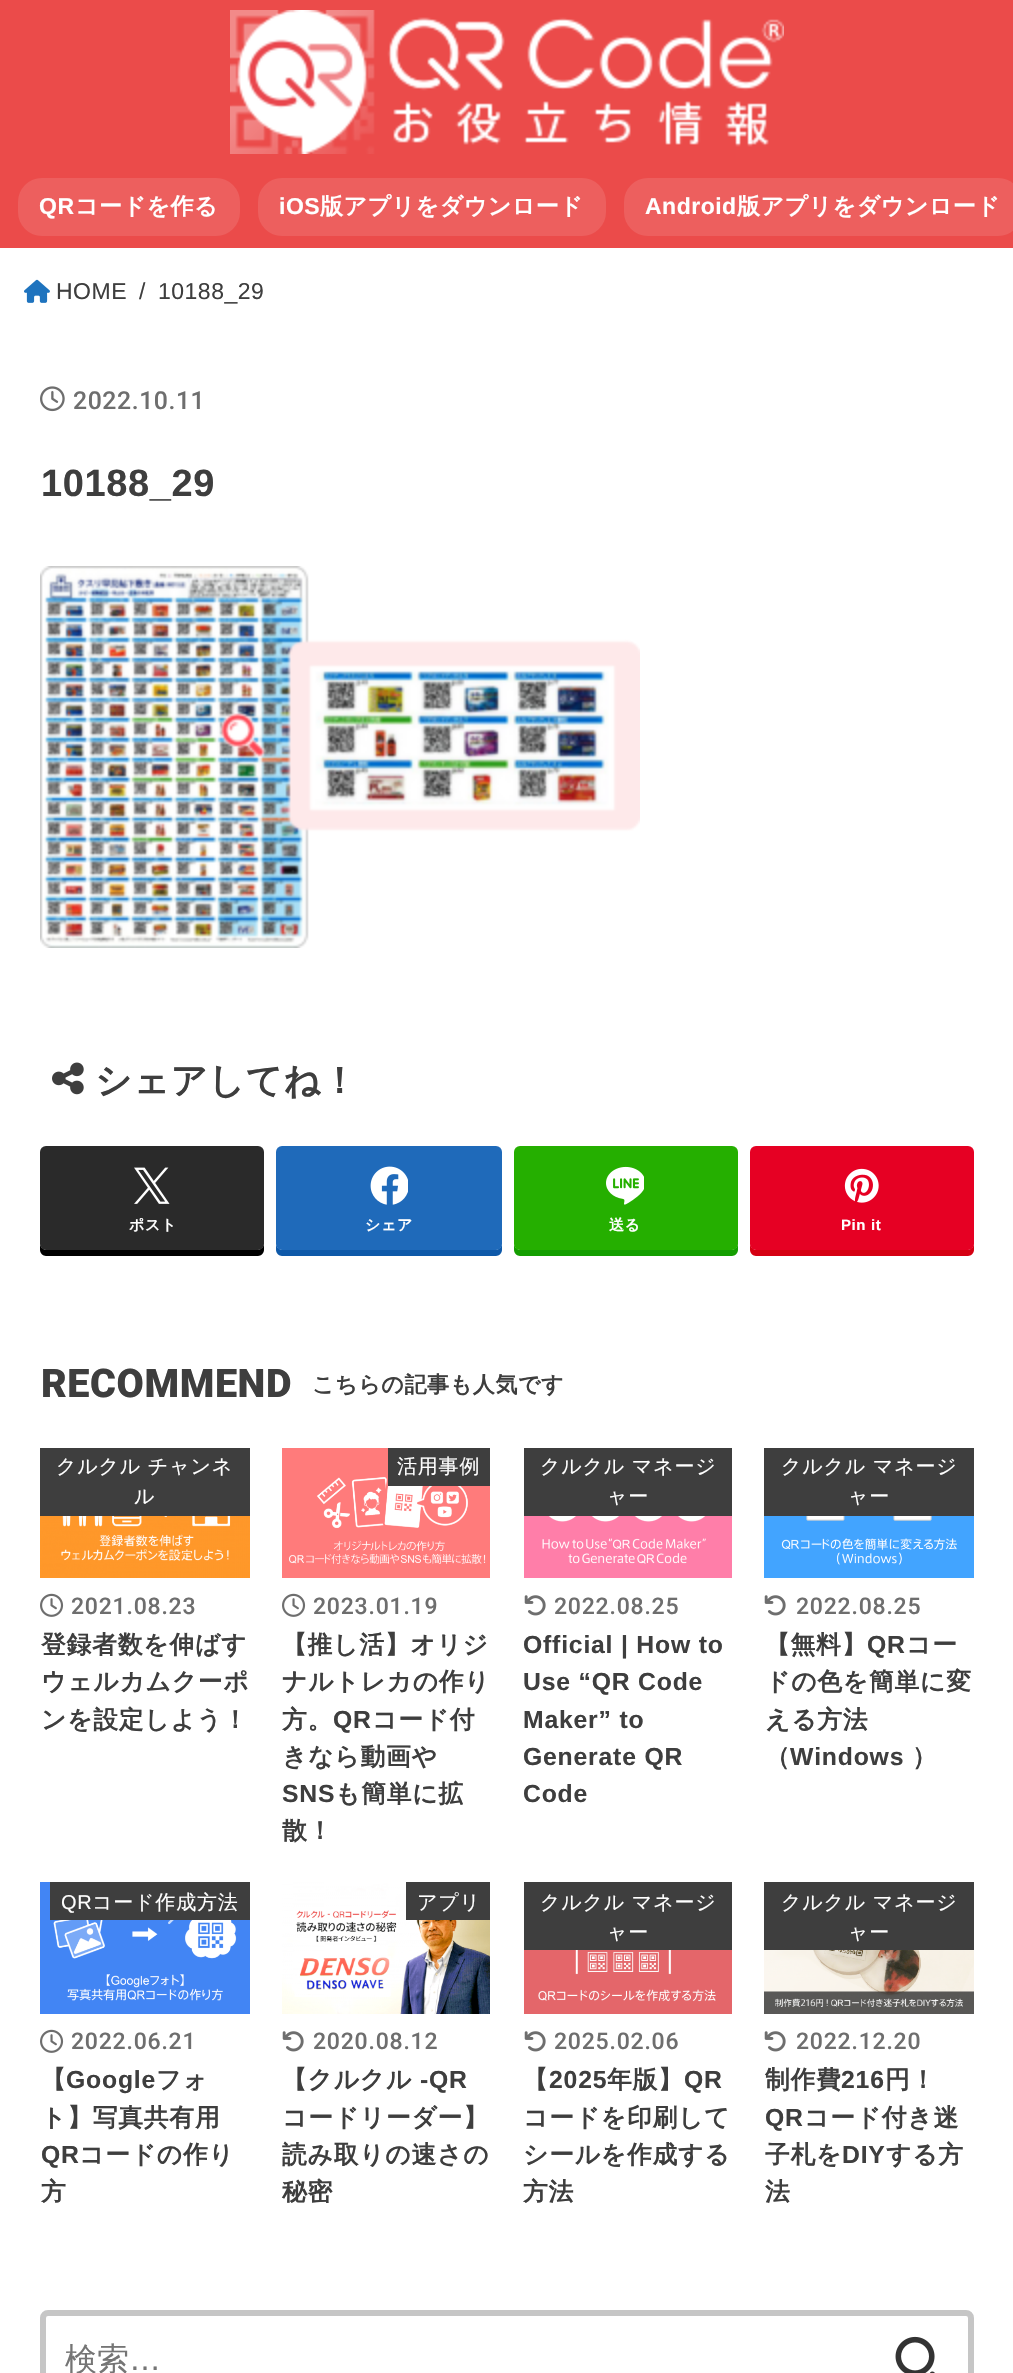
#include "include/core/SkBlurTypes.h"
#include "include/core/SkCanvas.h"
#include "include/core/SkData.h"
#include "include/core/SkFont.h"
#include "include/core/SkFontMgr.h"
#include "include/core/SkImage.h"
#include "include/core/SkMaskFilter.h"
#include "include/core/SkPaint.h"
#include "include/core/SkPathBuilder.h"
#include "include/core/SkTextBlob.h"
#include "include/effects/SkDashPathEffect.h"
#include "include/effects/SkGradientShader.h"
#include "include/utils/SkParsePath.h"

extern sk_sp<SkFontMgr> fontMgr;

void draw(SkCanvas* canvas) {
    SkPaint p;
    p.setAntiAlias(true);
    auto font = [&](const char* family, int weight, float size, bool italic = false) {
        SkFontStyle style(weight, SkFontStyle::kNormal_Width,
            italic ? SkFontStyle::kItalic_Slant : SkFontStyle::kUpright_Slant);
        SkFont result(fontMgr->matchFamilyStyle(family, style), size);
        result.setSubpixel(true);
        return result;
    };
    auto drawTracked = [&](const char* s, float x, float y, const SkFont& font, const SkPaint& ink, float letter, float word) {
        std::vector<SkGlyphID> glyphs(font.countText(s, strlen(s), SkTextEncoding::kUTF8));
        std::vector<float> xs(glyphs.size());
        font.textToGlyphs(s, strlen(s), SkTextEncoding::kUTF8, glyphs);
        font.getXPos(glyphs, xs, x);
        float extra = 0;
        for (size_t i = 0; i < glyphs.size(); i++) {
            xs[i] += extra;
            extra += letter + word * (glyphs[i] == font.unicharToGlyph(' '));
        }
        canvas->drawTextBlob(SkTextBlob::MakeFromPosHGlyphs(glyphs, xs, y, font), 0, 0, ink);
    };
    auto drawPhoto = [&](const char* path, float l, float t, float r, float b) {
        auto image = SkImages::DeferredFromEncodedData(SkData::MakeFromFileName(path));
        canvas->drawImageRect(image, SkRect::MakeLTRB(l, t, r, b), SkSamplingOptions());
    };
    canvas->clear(0xFFEB4B4A);
    drawPhoto("media/1.png", 230, 10, 784, 154);
    p.setColor(0xFFED5F5E);
    canvas->drawRoundRect(SkRect::MakeLTRB(18, 178, 240, 236), 24, 24, p);
    auto font1 = font("Liberation Sans", 700, 23);
    p.setColor(0xFFFFFFFF);
    drawTracked("QR", 39, 214, font1, p, 0.5f, 0);
    auto font2 = font("WenQuanYi Zen Hei", 700, 23);
    drawTracked("コードを作る", 75, 214, font2, p, 0.5f, 0);
    p.setColor(0xFFED5F5E);
    canvas->drawRoundRect(SkRect::MakeLTRB(258, 178, 606, 236), 24, 24, p);
    p.setColor(0xFFFFFFFF);
    drawTracked("iOS", 279, 214, font1, p, 0.5f, 0);
    drawTracked("版アプリをダウンロード", 320, 214, font2, p, 0.5f, 0);
    p.setColor(0xFFED5F5E);
    canvas->drawRoundRect(SkRect::MakeLTRB(624, 178, 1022, 236), 24, 24, p);
    p.setColor(0xFFFFFFFF);
    drawTracked("Android", 645, 214, font1, p, 0.5f, 0);
    drawTracked("版アプリをダウンロード", 737, 214, font2, p, 0.5f, 0);
    canvas->drawRect(SkRect::MakeLTRB(0, 248, 1013, 2373), p);
    drawPhoto("media/2.png", 24, 279, 50, 303);
    auto font3 = font("Liberation Sans", 400, 23);
    p.setColor(0xFF3E3E3E);
    {
        const struct { const char* s; float x, y; } items[] = {
            {"HOME", 56, 299},
            {"/", 139, 299},
            {"10188_29", 158, 299},
        };
        for (auto [s, x, y] : items) {
            drawTracked(s, x, y, font3, p, 0.5f, 0);
        }
    }
    drawPhoto("media/3.png", 40, 386, 65, 412);
    auto font4 = font("Roboto", 500, 24.75f);
    p.setColor(0xFF6E6E6E);
    drawTracked("2022.10.11", 73, 409, font4, p, 0.6f, 0);
    auto font5 = font("Liberation Sans", 700, 38);
    p.setColor(0xFF3E3E3E);
    drawTracked("10188_29", 41, 496, font5, p, 0.6f, 0);
    drawPhoto("media/4.png", 40, 566, 640, 948);
    drawPhoto("media/5.png", 52, 1062, 84, 1095);
    auto font6 = font("WenQuanYi Zen Hei", 700, 36.25f);
    drawTracked("シェアしてね！", 95, 1093, font6, p, 0.6f, 0);
    p.setColor(0xFF000000);
    canvas->drawPath(SkPathBuilder().moveTo(40, 1243).lineTo(40, 1250).cubicTo(40, 1253, 43, 1256, 46, 1256).lineTo(258, 1256).cubicTo(261, 1256, 264, 1253, 264, 1250).lineTo(264, 1243).cubicTo(264, 1247, 261, 1250, 257, 1250).lineTo(47, 1250).cubicTo(43, 1250, 40, 1247, 40, 1243).close().detach(), p);
    p.setColor(0xFF2A2A2A);
    canvas->drawRoundRect(SkRect::MakeLTRB(40, 1146, 264, 1250), 6, 6, p);
    drawPhoto("media/6.png", 134, 1167, 170, 1204);
    auto font7 = font("WenQuanYi Zen Hei", 700, 15);
    p.setColor(0xFFFFFFFF);
    drawTracked("ポスト", 129, 1230, font7, p, 0.6f, 0);
    p.setColor(0xFF0E59A9);
    canvas->drawPath(SkPathBuilder().moveTo(276, 1243).lineTo(276, 1250).cubicTo(276, 1253, 279, 1256, 282, 1256).lineTo(496, 1256).cubicTo(499, 1256, 502, 1253, 502, 1250).lineTo(502, 1243).cubicTo(502, 1247, 499, 1250, 495, 1250).lineTo(283, 1250).cubicTo(279, 1250, 276, 1247, 276, 1243).close().detach(), p);
    p.setColor(0xFF1F6ABA);
    canvas->drawRoundRect(SkRect::MakeLTRB(276, 1146, 502, 1250), 6, 6, p);
    drawPhoto("media/7.png", 370, 1166, 408, 1205);
    p.setColor(0xFFFFFFFF);
    drawTracked("シェア", 365, 1230, font7, p, 0.6f, 0);
    p.setColor(0xFF149E00);
    canvas->drawPath(SkPathBuilder().moveTo(514, 1243).lineTo(514, 1250).cubicTo(514, 1253, 517, 1256, 520, 1256).lineTo(732, 1256).cubicTo(735, 1256, 738, 1253, 738, 1250).lineTo(738, 1243).cubicTo(738, 1247, 735, 1250, 731, 1250).lineTo(521, 1250).cubicTo(517, 1250, 514, 1247, 514, 1243).close().detach(), p);
    p.setColor(0xFF25AF00);
    canvas->drawRoundRect(SkRect::MakeLTRB(514, 1146, 738, 1250), 6, 6, p);
    drawPhoto("media/8.png", 606, 1166, 644, 1205);
    p.setColor(0xFFFFFFFF);
    drawTracked("送る", 609, 1230, font7, p, 0.6f, 0);
    p.setColor(0xFFD50012);
    canvas->drawPath(SkPathBuilder().moveTo(750, 1243).lineTo(750, 1250).cubicTo(750, 1253, 753, 1256, 756, 1256).lineTo(968, 1256).cubicTo(971, 1256, 974, 1253, 974, 1250).lineTo(974, 1243).cubicTo(974, 1247, 971, 1250, 967, 1250).lineTo(757, 1250).cubicTo(753, 1250, 750, 1247, 750, 1243).close().detach(), p);
    p.setColor(0xFFE60023);
    canvas->drawRoundRect(SkRect::MakeLTRB(750, 1146, 974, 1250), 6, 6, p);
    drawPhoto("media/9.png", 844, 1168, 879, 1203);
    auto font8 = font("Liberation Sans", 700, 15);
    p.setColor(0xFFFFFFFF);
    drawTracked("Pin it", 841, 1230, font8, p, 0.6f, 0);
    auto font9 = font("Roboto", 900, 39.5f);
    p.setColor(0xFF3E3E3E);
    drawTracked("RECOMMEND", 41, 1397, font9, p, 0.6f, 0);
    auto font10 = font("WenQuanYi Zen Hei", 700, 22);
    drawTracked("こちらの記事も人気です", 312, 1392, font10, p, 0.6f, 0);
    canvas->drawRect(SkRect::MakeLTRB(40, 1448, 250, 1516), p);
    auto font11 = font("WenQuanYi Zen Hei", 500, 20);
    p.setColor(0xFFFFFFFF);
    drawTracked("クルクル チャンネ", 56, 1473, font11, p, 0.8f, 0);
    drawTracked("ル", 134, 1503, font11, p, 0.8f, 0);
    drawPhoto("media/10.png", 40, 1516, 250, 1578);
    drawPhoto("media/11.png", 40, 1593, 64, 1617);
    auto font12 = font("Roboto", 500, 23);
    p.setColor(0xFF6E6E6E);
    drawTracked("2021.08.23", 71, 1614, font12, p, 0.8f, 0);
    auto font13 = font("WenQuanYi Zen Hei", 700, 24.75f);
    p.setColor(0xFF3E3E3E);
    {
        const struct { const char* s; float x, y; } items[] = {
            {"登録者数を伸ばす", 41, 1653},
            {"ウェルカムクーポ", 41, 1690},
            {"ンを設定しよう！", 41, 1728},
        };
        for (auto [s, x, y] : items) {
            drawTracked(s, x, y, font13, p, 0.8f, 0);
        }
    }
    drawPhoto("media/12.png", 282, 1448, 490, 1578);
    canvas->drawRect(SkRect::MakeLTRB(388, 1448, 490, 1486), p);
    p.setColor(0xFFFFFFFF);
    drawTracked("活用事例", 397, 1473, font11, p, 0.8f, 0);
    drawPhoto("media/11.png", 282, 1593, 306, 1617);
    p.setColor(0xFF6E6E6E);
    drawTracked("2023.01.19", 313, 1614, font12, p, 0.8f, 0);
    p.setColor(0xFF3E3E3E);
    {
        const struct { const char* s; float x, y; } items[] = {
            {"【推し活】オリジ", 282, 1653},
            {"ナルトレカの作り", 282, 1690},
            {"方。", 282, 1728},
        };
        for (auto [s, x, y] : items) {
            drawTracked(s, x, y, font13, p, 0.8f, 0);
        }
    }
    auto font14 = font("Liberation Sans", 700, 24.75f);
    drawTracked("QR", 333, 1728, font14, p, 0.8f, 0);
    drawTracked("コード付", 372, 1728, font13, p, 0.8f, 0);
    drawTracked("きなら動画や", 282, 1765, font13, p, 0.8f, 0);
    drawTracked("SNS", 282, 1802, font14, p, 0.8f, 0);
    drawTracked("も簡単に拡", 335, 1802, font13, p, 0.8f, 0);
    drawTracked("散！", 282, 1839, font13, p, 0.8f, 0);
    canvas->drawRect(SkRect::MakeLTRB(524, 1448, 732, 1516), p);
    p.setColor(0xFFFFFFFF);
    drawTracked("クルクル マネージ", 540, 1473, font11, p, 0.8f, 0);
    drawTracked("ャー", 607, 1503, font11, p, 0.8f, 0);
    drawPhoto("media/13.png", 524, 1516, 732, 1578);
    drawPhoto("media/14.png", 524, 1595, 546, 1616);
    p.setColor(0xFF6E6E6E);
    drawTracked("2022.08.25", 554, 1614, font12, p, 0.8f, 0);
    p.setColor(0xFF3E3E3E);
    {
        const struct { const char* s; float x, y; } items[] = {
            {"Official | How to", 523, 1653},
            {"Use “QR Code", 523, 1690},
            {"Maker” to", 523, 1728},
            {"Generate QR", 523, 1765},
            {"Code", 523, 1802},
        };
        for (auto [s, x, y] : items) {
            drawTracked(s, x, y, font14, p, 0.8f, 0);
        }
    }
    canvas->drawRect(SkRect::MakeLTRB(764, 1448, 974, 1516), p);
    p.setColor(0xFFFFFFFF);
    drawTracked("クルクル マネージ", 781, 1473, font11, p, 0.8f, 0);
    drawTracked("ャー", 848, 1503, font11, p, 0.8f, 0);
    drawPhoto("media/15.png", 764, 1516, 974, 1578);
    drawPhoto("media/14.png", 764, 1595, 786, 1616);
    p.setColor(0xFF6E6E6E);
    drawTracked("2022.08.25", 796, 1614, font12, p, 0.8f, 0);
    p.setColor(0xFF3E3E3E);
    drawTracked("【無料】", 765, 1653, font13, p, 0.8f, 0);
    drawTracked("QR", 867, 1653, font14, p, 0.8f, 0);
    {
        const struct { const char* s; float x, y; } items[] = {
            {"コー", 906, 1653},
            {"ドの色を簡単に変", 765, 1690},
            {"える方法", 765, 1728},
            {"（", 765, 1765},
        };
        for (auto [s, x, y] : items) {
            drawTracked(s, x, y, font13, p, 0.8f, 0);
        }
    }
    drawTracked("Windows", 790, 1765, font14, p, 0.8f, 0);
    drawTracked("）", 912, 1765, font13, p, 0.8f, 0);
    drawPhoto("media/16.png", 40, 1882, 250, 2014);
    canvas->drawRect(SkRect::MakeLTRB(50, 1882, 250, 1920), p);
    auto font15 = font("Liberation Sans", 400, 20);
    p.setColor(0xFFFFFFFF);
    drawTracked("QR", 61, 1909, font15, p, 0.8f, 0);
    drawTracked("コード作成方法", 92, 1909, font11, p, 0.8f, 0);
    drawPhoto("media/11.png", 40, 2029, 64, 2053);
    p.setColor(0xFF6E6E6E);
    drawTracked("2022.06.21", 71, 2049, font12, p, 0.8f, 0);
    p.setColor(0xFF3E3E3E);
    drawTracked("【", 41, 2088, font13, p, 0.8f, 0);
    drawTracked("Google", 66, 2088, font14, p, 0.8f, 0);
    drawTracked("フォ", 156, 2088, font13, p, 0.8f, 0);
    drawTracked("ト】写真共有用", 41, 2126, font13, p, 0.8f, 0);
    drawTracked("QR", 41, 2163, font14, p, 0.8f, 0);
    drawTracked("コードの作り", 79, 2163, font13, p, 0.8f, 0);
    drawTracked("方", 41, 2200, font13, p, 0.8f, 0);
    drawPhoto("media/17.png", 282, 1882, 490, 2014);
    canvas->drawRect(SkRect::MakeLTRB(406, 1882, 490, 1920), p);
    p.setColor(0xFFFFFFFF);
    drawTracked("アプリ", 417, 1909, font11, p, 0.8f, 0);
    drawPhoto("media/14.png", 282, 2031, 304, 2052);
    p.setColor(0xFF6E6E6E);
    drawTracked("2020.08.12", 313, 2049, font12, p, 0.8f, 0);
    p.setColor(0xFF3E3E3E);
    drawTracked("【クルクル", 282, 2088, font13, p, 0.8f, 0);
    drawTracked("-QR", 420, 2088, font14, p, 0.8f, 0);
    {
        const struct { const char* s; float x, y; } items[] = {
            {"コードリーダー】", 282, 2126},
            {"読み取りの速さの", 282, 2163},
            {"秘密", 282, 2200},
        };
        for (auto [s, x, y] : items) {
            drawTracked(s, x, y, font13, p, 0.8f, 0);
        }
    }
    canvas->drawRect(SkRect::MakeLTRB(524, 1882, 732, 1950), p);
    p.setColor(0xFFFFFFFF);
    drawTracked("クルクル マネージ", 540, 1909, font11, p, 0.8f, 0);
    drawTracked("ャー", 607, 1939, font11, p, 0.8f, 0);
    drawPhoto("media/18.png", 524, 1950, 732, 2014);
    drawPhoto("media/14.png", 524, 2031, 546, 2052);
    p.setColor(0xFF6E6E6E);
    drawTracked("2025.02.06", 554, 2049, font12, p, 0.8f, 0);
    p.setColor(0xFF3E3E3E);
    drawTracked("【", 523, 2088, font13, p, 0.8f, 0);
    drawTracked("2025", 549, 2088, font14, p, 0.8f, 0);
    drawTracked("年版】", 607, 2088, font13, p, 0.8f, 0);
    drawTracked("QR", 684, 2088, font14, p, 0.8f, 0);
    {
        const struct { const char* s; float x, y; } items[] = {
            {"コードを印刷して", 523, 2126},
            {"シールを作成する", 523, 2163},
            {"方法", 523, 2200},
        };
        for (auto [s, x, y] : items) {
            drawTracked(s, x, y, font13, p, 0.8f, 0);
        }
    }
    canvas->drawRect(SkRect::MakeLTRB(764, 1882, 974, 1950), p);
    p.setColor(0xFFFFFFFF);
    drawTracked("クルクル マネージ", 781, 1909, font11, p, 0.8f, 0);
    drawTracked("ャー", 848, 1939, font11, p, 0.8f, 0);
    drawPhoto("media/19.png", 764, 1950, 974, 2014);
    drawPhoto("media/14.png", 764, 2031, 786, 2052);
    p.setColor(0xFF6E6E6E);
    drawTracked("2022.12.20", 796, 2049, font12, p, 0.8f, 0);
    p.setColor(0xFF3E3E3E);
    drawTracked("制作費", 765, 2088, font13, p, 0.8f, 0);
    drawTracked("216", 841, 2088, font14, p, 0.8f, 0);
    drawTracked("円！", 885, 2088, font13, p, 0.8f, 0);
    drawTracked("QR", 765, 2126, font14, p, 0.8f, 0);
    drawTracked("コード付き迷", 804, 2126, font13, p, 0.8f, 0);
    drawTracked("子札を", 765, 2163, font13, p, 0.8f, 0);
    drawTracked("DIY", 842, 2163, font14, p, 0.8f, 0);
    drawTracked("する方", 886, 2163, font13, p, 0.8f, 0);
    drawTracked("法", 765, 2200, font13, p, 0.8f, 0);
    p.setStyle(SkPaint::kStroke_Style);
    p.setStrokeWidth(6);
    p.setColor(0xFFC6C6C6);
    canvas->drawRoundRect(SkRect::MakeLTRB(43, 2313, 971, 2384), 5, 5, p);
    auto font16 = font("WenQuanYi Zen Hei", 500, 32);
    p.setStyle(SkPaint::kFill_Style);
    p.setColor(0xFF757575);
    canvas->drawString("検索", 65, 2370, font16, p);
    auto font17 = font("Liberation Sans", 400, 32);
    canvas->drawString("…", 129, 2370, font17, p);
    drawPhoto("media/20.png", 895, 2336, 935, 2373);
}
